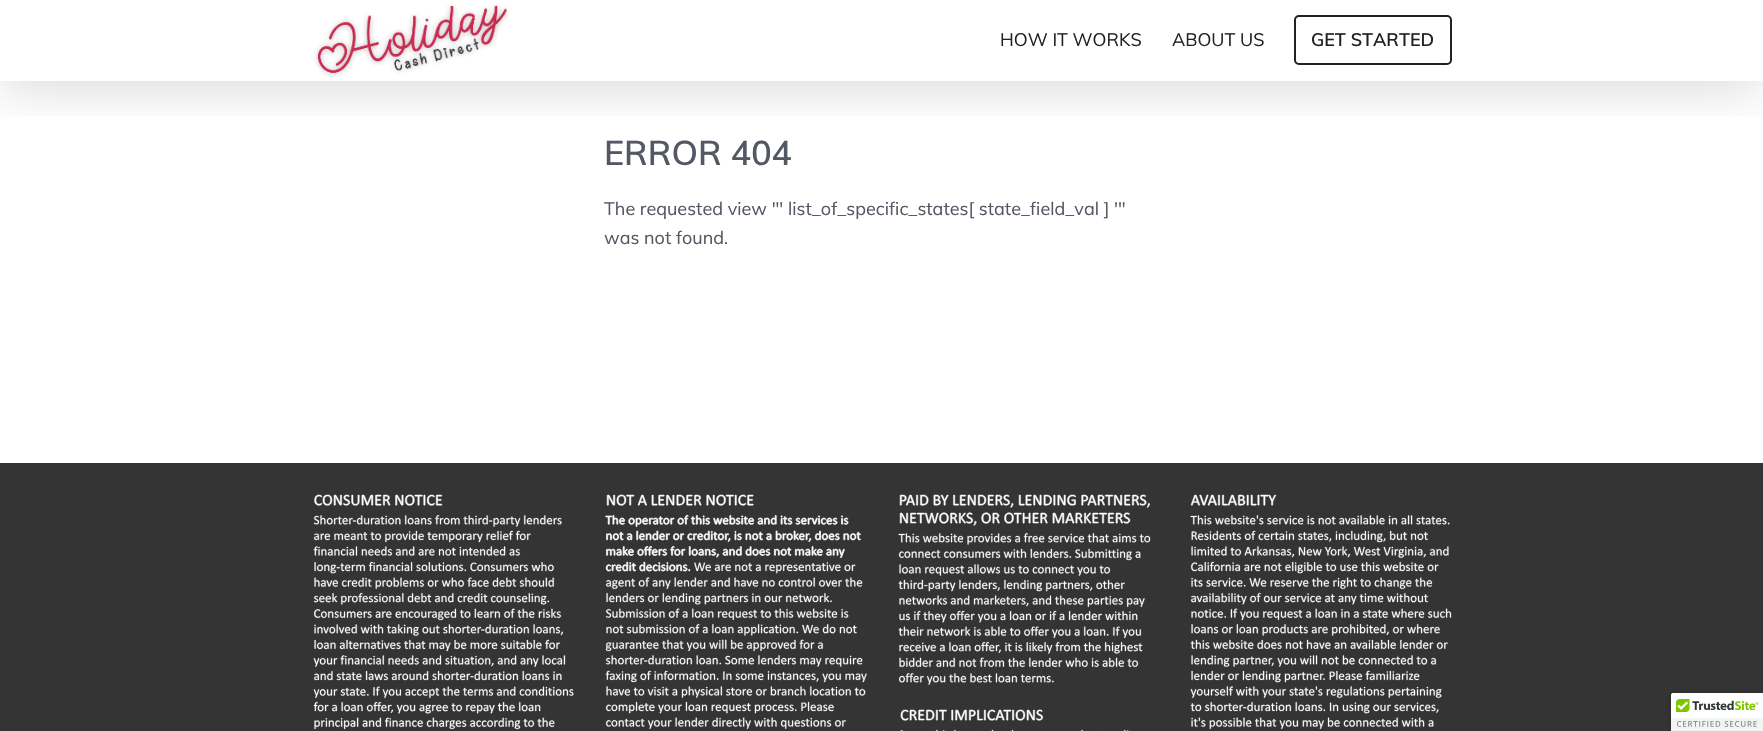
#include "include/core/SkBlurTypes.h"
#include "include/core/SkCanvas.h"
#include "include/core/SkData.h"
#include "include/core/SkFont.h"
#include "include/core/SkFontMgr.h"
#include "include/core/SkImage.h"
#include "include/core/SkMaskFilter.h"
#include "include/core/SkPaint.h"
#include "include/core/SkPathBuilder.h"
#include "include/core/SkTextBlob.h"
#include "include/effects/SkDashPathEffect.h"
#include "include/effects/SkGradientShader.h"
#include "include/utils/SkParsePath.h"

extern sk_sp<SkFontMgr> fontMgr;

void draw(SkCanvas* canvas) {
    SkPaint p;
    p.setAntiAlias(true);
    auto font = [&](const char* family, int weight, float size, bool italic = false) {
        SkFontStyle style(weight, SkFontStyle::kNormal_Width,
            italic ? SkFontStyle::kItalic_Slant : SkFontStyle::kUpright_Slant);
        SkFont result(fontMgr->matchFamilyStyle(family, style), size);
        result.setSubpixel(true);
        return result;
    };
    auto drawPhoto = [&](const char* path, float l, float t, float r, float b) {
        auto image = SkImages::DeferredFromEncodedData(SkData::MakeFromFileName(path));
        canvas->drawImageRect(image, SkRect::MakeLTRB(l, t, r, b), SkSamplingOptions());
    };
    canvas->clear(0xFFFFFFFF);
    canvas->save();
    canvas->clipRect(SkRect::MakeLTRB(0, 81, 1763, 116));
    p.setColor(0x24000000);
    p.setMaskFilter(SkMaskFilter::MakeBlur(kNormal_SkBlurStyle, 25));
    canvas->drawRect(SkRect::MakeLTRB(2, 12, 1761, 89), p);
    p.setMaskFilter(nullptr);
    canvas->restore();
    drawPhoto("media/1.png", 314, 4, 509, 77);
    auto font1 = font("Muli", 400, 18);
    p.setColor(0xFF212121);
    canvas->drawString("HOW IT WORKS", 1000, 46, font1, p);
    canvas->drawString("ABOUT US", 1172, 46, font1, p);
    p.setStyle(SkPaint::kStroke_Style);
    p.setStrokeWidth(2);
    canvas->drawRoundRect(SkRect::MakeLTRB(1295, 16, 1451, 64), 4, 4, p);
    auto font2 = font("Muli", 600, 18);
    p.setStyle(SkPaint::kFill_Style);
    canvas->drawString("GET STARTED", 1311, 46, font2, p);
    auto font3 = font("Muli", 600, 34);
    p.setColor(0xFF545764);
    canvas->drawString("ERROR 404", 604, 165, font3, p);
    canvas->drawString("The requested view \"' list_of_specific_states[ state_field_val ] '\"", 604, 215, font1, p);
    canvas->drawString("was not found.", 604, 244, font1, p);
    p.setColor(0xFF343434);
    canvas->drawRect(SkRect::MakeLTRB(0, 463, 1763, 731), p);
    drawPhoto("media/2.png", 313, 494, 574, 730);
    drawPhoto("media/3.png", 605, 494, 867, 730);
    drawPhoto("media/4.png", 898, 494, 1151, 731);
    drawPhoto("media/5.png", 1190, 494, 1452, 730);
    p.setColor(0x33000000);
    p.setMaskFilter(SkMaskFilter::MakeBlur(kNormal_SkBlurStyle, 2.5f));
    canvas->drawRoundRect(SkRect::MakeLTRB(1671, 693, 1763, 731), 2, 2, p);
    p.setMaskFilter(nullptr);
    p.setColor(0xFFFFFFFF);
    canvas->drawPath(SkPathBuilder().moveTo(1673, 693).lineTo(1763, 693).lineTo(1763, 731).lineTo(1671, 731).lineTo(1671, 695).cubicTo(1671, 694, 1672, 693, 1673, 693).close().detach(), p);
    drawPhoto("media/6.png", 1671, 693, 1763, 731);
}
